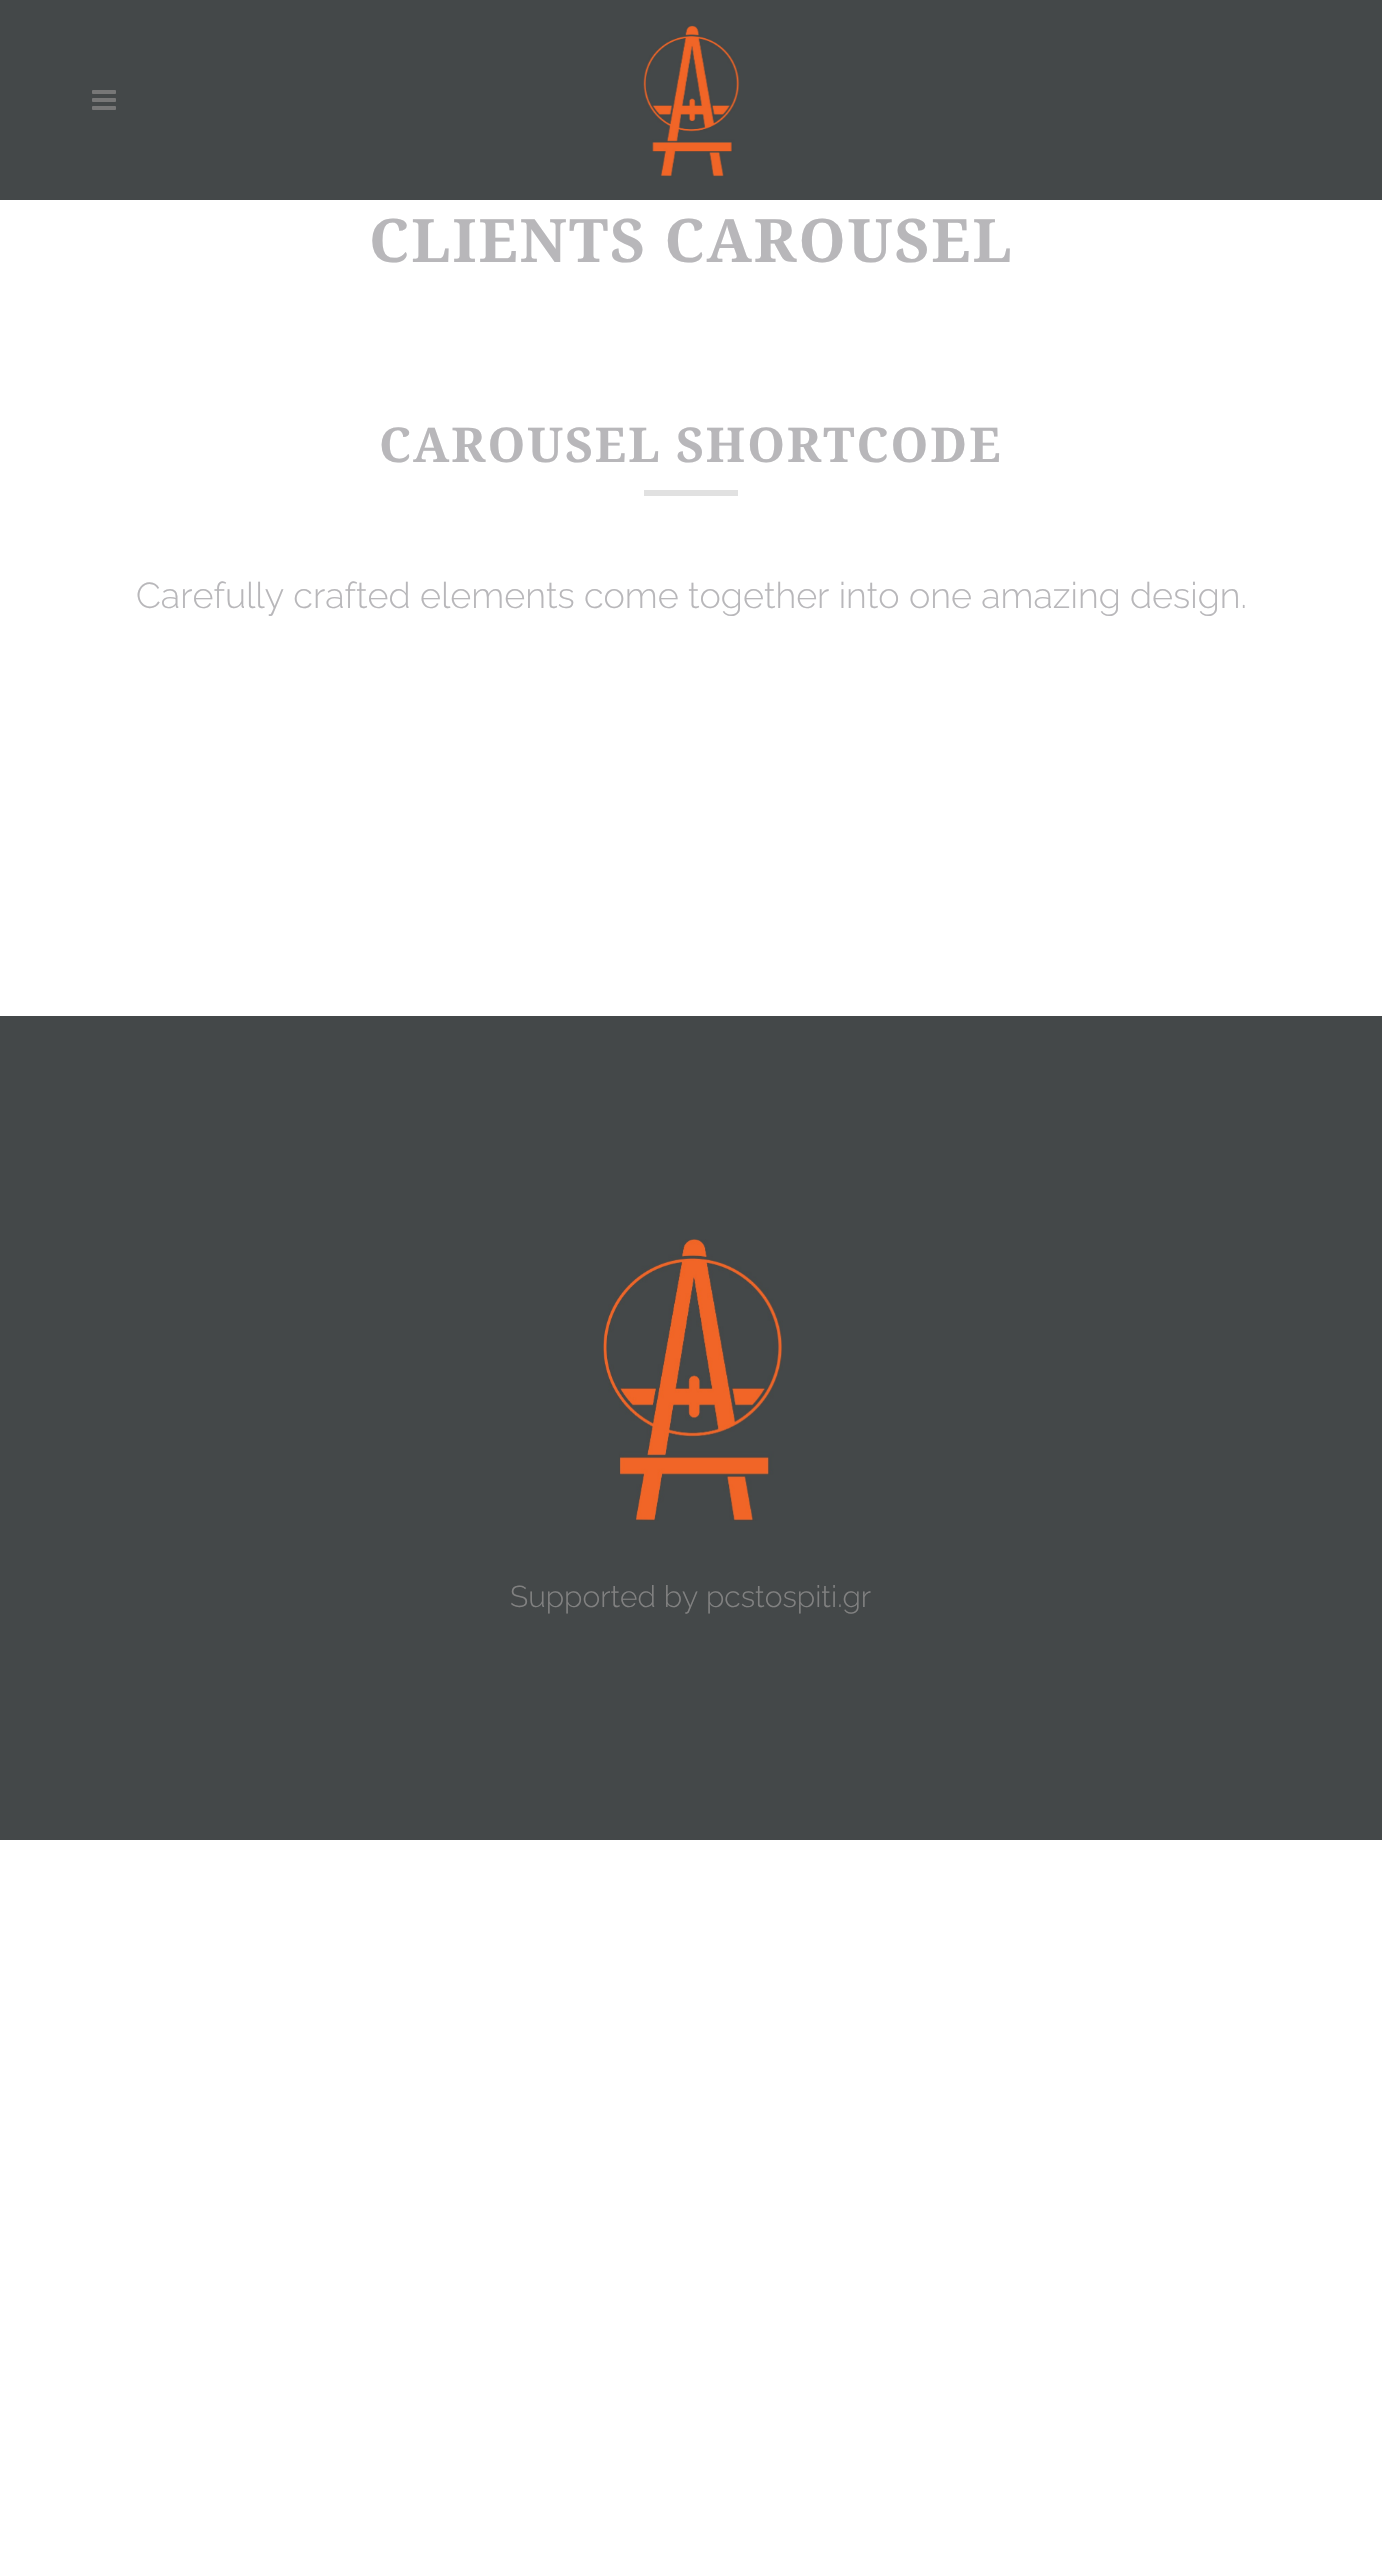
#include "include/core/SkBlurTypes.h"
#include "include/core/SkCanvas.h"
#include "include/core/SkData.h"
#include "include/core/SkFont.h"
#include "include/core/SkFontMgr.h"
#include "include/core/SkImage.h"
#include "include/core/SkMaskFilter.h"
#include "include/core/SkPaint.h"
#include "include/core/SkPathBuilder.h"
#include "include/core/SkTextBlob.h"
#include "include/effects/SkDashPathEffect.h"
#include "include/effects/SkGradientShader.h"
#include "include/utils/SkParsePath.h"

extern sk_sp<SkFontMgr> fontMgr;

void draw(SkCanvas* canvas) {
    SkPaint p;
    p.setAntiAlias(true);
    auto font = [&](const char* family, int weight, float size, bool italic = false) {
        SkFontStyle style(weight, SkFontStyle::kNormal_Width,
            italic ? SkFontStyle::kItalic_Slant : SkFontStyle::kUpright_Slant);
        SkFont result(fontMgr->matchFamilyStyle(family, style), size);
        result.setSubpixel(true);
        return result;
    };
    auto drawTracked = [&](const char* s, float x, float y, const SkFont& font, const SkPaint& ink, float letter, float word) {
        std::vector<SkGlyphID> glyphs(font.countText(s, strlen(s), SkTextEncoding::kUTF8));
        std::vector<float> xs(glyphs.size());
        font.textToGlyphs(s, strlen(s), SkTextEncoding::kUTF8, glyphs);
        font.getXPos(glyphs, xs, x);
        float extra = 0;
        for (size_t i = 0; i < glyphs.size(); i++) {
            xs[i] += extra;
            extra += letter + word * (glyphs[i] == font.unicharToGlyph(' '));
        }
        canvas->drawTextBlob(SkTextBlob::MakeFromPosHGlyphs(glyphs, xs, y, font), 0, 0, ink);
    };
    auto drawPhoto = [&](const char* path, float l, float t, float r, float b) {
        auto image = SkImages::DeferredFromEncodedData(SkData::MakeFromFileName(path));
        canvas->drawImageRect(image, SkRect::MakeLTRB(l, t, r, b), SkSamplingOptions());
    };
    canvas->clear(0xFFFFFFFF);
    p.setColor(0xFF444849);
    canvas->drawRect(SkRect::MakeLTRB(0, 0, 1382, 200), p);
    drawPhoto("media/1.png", 92, 90, 116, 110);
    drawPhoto("media/2.png", 643, 25, 740, 177);
    auto font1 = font("Noto Serif", 700, 60);
    p.setColor(0xFFB8B7BA);
    drawTracked("CLIENTS CAROUSEL", 369, 262, font1, p, 2, 0);
    auto font2 = font("Noto Serif", 700, 48);
    drawTracked("CAROUSEL SHORTCODE", 379, 462, font2, p, 2, 0);
    p.setColor(0xFFE1E1E1);
    canvas->drawRect(SkRect::MakeLTRB(644, 490, 738, 496), p);
    auto font3 = font("Raleway", 300, 36);
    p.setColor(0xFFB8B7BA);
    canvas->drawString("Carefully crafted elements come together into one amazing design.", 136, 608, font3, p);
    p.setColor(0xFF444849);
    canvas->drawRect(SkRect::MakeLTRB(0, 1016, 1382, 1840), p);
    drawPhoto("media/3.png", 603, 1239, 783, 1521);
    auto font4 = font("Raleway", 300, 30);
    p.setColor(0xFF818181);
    canvas->drawString("Supported by pcstospiti.gr", 510, 1607, font4, p);
}
